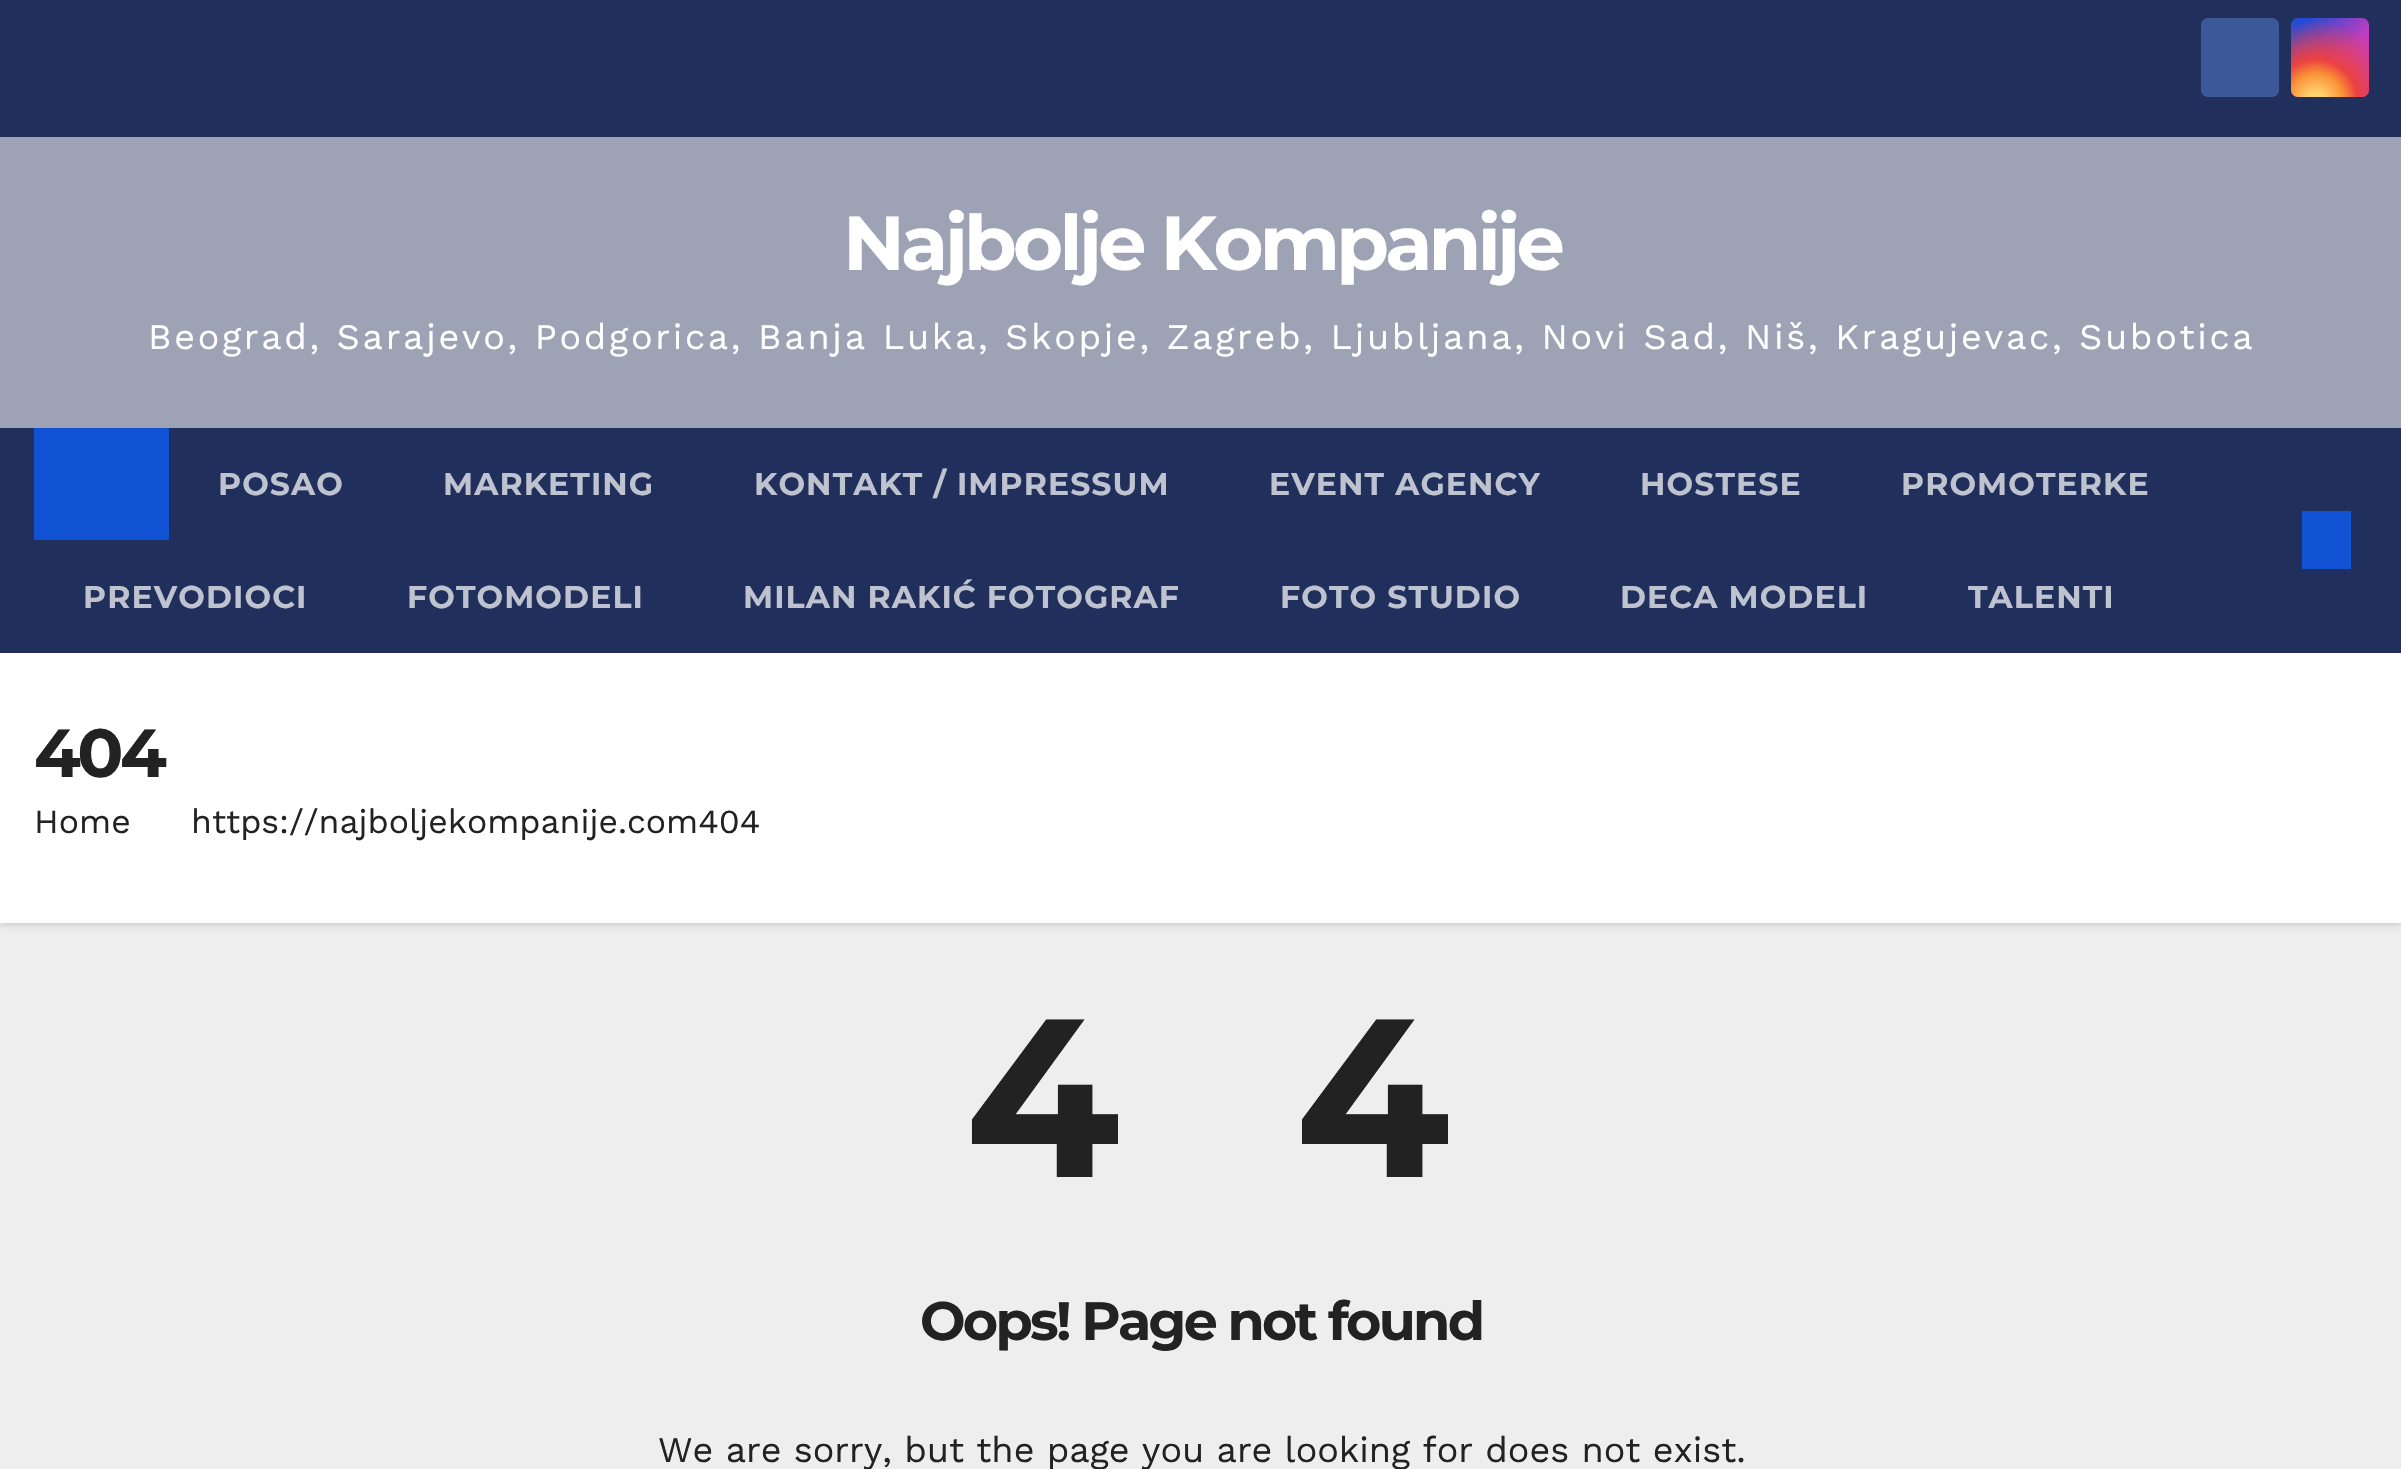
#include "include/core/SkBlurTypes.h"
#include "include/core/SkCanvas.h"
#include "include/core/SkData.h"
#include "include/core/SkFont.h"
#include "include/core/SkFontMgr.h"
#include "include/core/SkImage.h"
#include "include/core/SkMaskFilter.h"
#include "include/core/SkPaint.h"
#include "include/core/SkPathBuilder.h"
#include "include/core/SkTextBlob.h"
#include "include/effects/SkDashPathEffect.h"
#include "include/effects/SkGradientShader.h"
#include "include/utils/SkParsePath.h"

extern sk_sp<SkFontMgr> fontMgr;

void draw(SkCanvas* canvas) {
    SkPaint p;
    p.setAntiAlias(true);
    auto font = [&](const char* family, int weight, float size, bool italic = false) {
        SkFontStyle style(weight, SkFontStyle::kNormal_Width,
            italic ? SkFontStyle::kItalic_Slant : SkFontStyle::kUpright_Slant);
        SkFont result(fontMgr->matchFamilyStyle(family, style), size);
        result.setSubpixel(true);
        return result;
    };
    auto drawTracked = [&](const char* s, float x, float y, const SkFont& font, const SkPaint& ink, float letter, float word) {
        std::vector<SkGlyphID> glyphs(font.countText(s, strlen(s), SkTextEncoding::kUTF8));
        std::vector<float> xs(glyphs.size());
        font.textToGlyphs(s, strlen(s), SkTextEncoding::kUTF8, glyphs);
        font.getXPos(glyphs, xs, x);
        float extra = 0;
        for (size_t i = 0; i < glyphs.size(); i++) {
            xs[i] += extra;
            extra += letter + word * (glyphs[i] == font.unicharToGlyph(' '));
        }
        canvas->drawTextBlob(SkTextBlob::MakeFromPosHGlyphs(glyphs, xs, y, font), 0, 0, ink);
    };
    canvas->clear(0xFFEEEEEE);
    p.setColor(0xFF202F5B);
    canvas->drawRect(SkRect::MakeLTRB(0, 0, 2401, 137), p);
    p.setColor(0xFF3B5998);
    canvas->drawRoundRect(SkRect::MakeLTRB(2201, 18, 2279, 97), 7, 7, p);
    {
        const SkColor colors[] = {0xFF234BD7, 0xFFC33CBE};
        const float stops[] = {0.12f, 0.58f};
        const SkPoint ends[] = {{2291, 18}, {2369, 97}};
        p.setShader(SkGradientShader::MakeLinear(ends, colors, stops, 2, SkTileMode::kClamp));
        p.setAlpha(255);
    }
    canvas->drawRoundRect(SkRect::MakeLTRB(2291, 18, 2369, 97), 7, 7, p);
    {
        const SkColor colors[] = {0xFFFFE17D, 0xFFFFCD69, 0xFFFA9137, 0xFFEB4141, 0x00EB4141};
        const float stops[] = {0, 0.1f, 0.28f, 0.42f, 0.82f};
        p.setShader(SkGradientShader::MakeRadial({2316, 101}, 99, colors, stops, 5, SkTileMode::kClamp));
        p.setAlpha(255);
    }
    canvas->drawRoundRect(SkRect::MakeLTRB(2291, 18, 2369, 97), 7, 7, p);
    p.setShader(nullptr);
    p.setColor(0xFF9DA3B4);
    canvas->drawRect(SkRect::MakeLTRB(0, 137, 2401, 428), p);
    auto font1 = font("Montserrat", 700, 76.5f);
    p.setColor(0xFFFFFFFF);
    drawTracked("Najbolje Kompanije", 843, 270, font1, p, -3.8f, 0);
    auto font2 = font("Work Sans", 400, 36);
    drawTracked("Beograd, Sarajevo, Podgorica, Banja Luka, Skopje, Zagreb, Ljubljana, Novi Sad, Niš, Kragujevac, Subotica", 148, 349, font2, p, 2.7f, 0);
    p.setColor(0x26000000);
    p.setMaskFilter(SkMaskFilter::MakeBlur(kNormal_SkBlurStyle, 3.5f));
    canvas->drawRect(SkRect::MakeLTRB(0, 655, 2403, 925), p);
    p.setMaskFilter(nullptr);
    p.setColor(0xFF202F5B);
    canvas->drawRect(SkRect::MakeLTRB(0, 428, 2401, 653), p);
    p.setColor(0xFF1151D3);
    canvas->drawRect(SkRect::MakeLTRB(34, 428, 169, 540), p);
    auto font3 = font("Montserrat", 700, 31.5f);
    p.setColor(0xFFBEC3CF);
    {
        const struct { const char* s; float x, y; } items[] = {
            {"POSAO", 218, 495},
            {"MARKETING", 443, 495},
            {"KONTAKT / IMPRESSUM", 754, 495},
            {"EVENT AGENCY", 1269, 495},
            {"HOSTESE", 1640, 495},
            {"PROMOTERKE", 1901, 495},
            {"PREVODIOCI", 83, 608},
            {"FOTOMODELI", 407, 608},
            {"MILAN RAKIĆ FOTOGRAF", 743, 608},
            {"FOTO STUDIO", 1280, 608},
            {"DECA MODELI", 1620, 608},
            {"TALENTI", 1968, 608},
        };
        for (auto [s, x, y] : items) {
            drawTracked(s, x, y, font3, p, 1.1f, 0);
        }
    }
    p.setColor(0xFF1151D3);
    canvas->drawRect(SkRect::MakeLTRB(2302, 511, 2351, 569), p);
    p.setColor(0xFFFFFFFF);
    canvas->drawRect(SkRect::MakeLTRB(0, 653, 2401, 923), p);
    auto font4 = font("Montserrat", 700, 68);
    p.setColor(0xFF222222);
    drawTracked("404", 34, 777, font4, p, -3.5f, 0);
    auto font5 = font("Work Sans", 400, 33.75f);
    canvas->drawString("Home", 34, 833, font5, p);
    canvas->drawString("https://najboljekompanije.com404", 191, 833, font5, p);
    auto font6 = font("Montserrat", 700, 225);
    drawTracked("4", 965, 1177, font6, p, -11, 0);
    drawTracked("4", 1295, 1177, font6, p, -11, 0);
    auto font7 = font("Montserrat", 700, 54);
    drawTracked("Oops! Page not found", 920, 1340, font7, p, -2.75f, 0);
    canvas->drawString("We are sorry, but the page you are looking for does not exist.", 658, 1462, font2, p);
}
